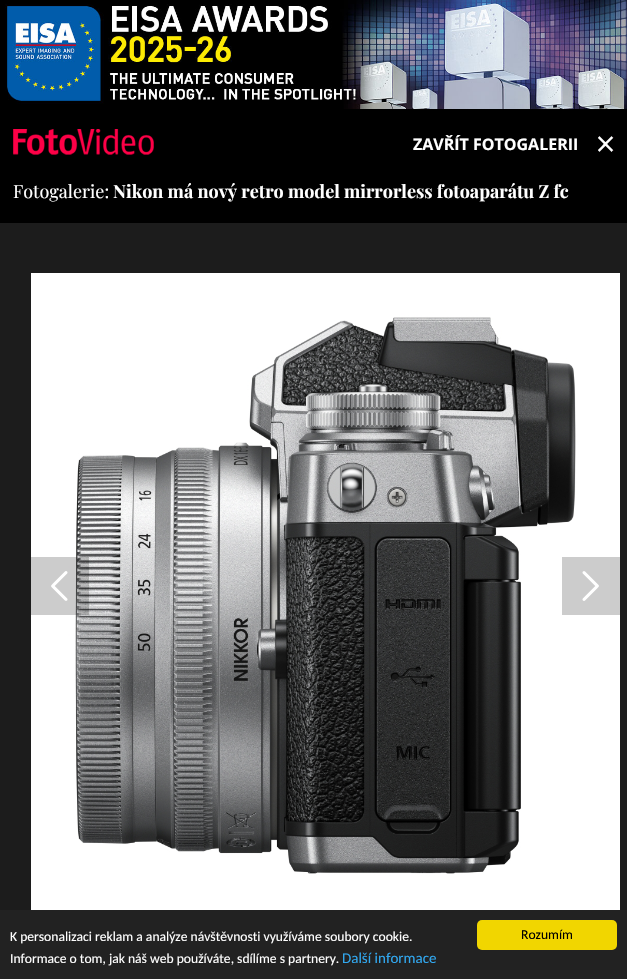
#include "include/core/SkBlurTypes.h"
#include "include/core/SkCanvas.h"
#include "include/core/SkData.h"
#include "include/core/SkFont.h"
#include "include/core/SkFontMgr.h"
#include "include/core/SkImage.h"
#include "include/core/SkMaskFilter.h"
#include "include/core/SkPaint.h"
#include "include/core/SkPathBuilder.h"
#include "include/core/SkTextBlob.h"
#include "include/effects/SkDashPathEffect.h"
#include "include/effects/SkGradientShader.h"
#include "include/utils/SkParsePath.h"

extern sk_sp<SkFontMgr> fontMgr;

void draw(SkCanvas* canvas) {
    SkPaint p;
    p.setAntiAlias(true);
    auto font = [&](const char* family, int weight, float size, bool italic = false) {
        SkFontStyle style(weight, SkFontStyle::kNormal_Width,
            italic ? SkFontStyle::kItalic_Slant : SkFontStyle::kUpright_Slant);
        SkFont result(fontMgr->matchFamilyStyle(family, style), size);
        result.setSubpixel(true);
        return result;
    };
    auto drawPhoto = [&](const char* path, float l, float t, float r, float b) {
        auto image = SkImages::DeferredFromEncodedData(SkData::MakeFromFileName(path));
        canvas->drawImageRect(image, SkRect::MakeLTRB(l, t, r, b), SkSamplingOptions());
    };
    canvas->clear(0xFF000000);
    drawPhoto("media/1.png", 5, 0, 627, 109);
    drawPhoto("media/2.png", 13, 129, 154, 155);
    auto font1 = font("Open Sans", 700, 16);
    p.setColor(0xFFFFFFFF);
    canvas->drawString("ZAVŘÍT FOTOGALERII", 413, 150, font1, p);
    drawPhoto("media/3.png", 598, 136, 614, 152);
    auto font2 = font("Playfair Display", 400, 18);
    canvas->drawString("Fotogalerie:", 13, 198, font2, p);
    auto font3 = font("Playfair Display", 700, 18);
    canvas->drawString("Nikon má nový retro model mirrorless fotoaparátu Z fc", 113, 198, font3, p);
    p.setColor(0xFF1C1C1C);
    canvas->drawRect(SkRect::MakeLTRB(0, 223, 627, 910), p);
    drawPhoto("media/4.png", 31, 273, 620, 910);
    p.setColor(0x33000000);
    canvas->drawRect(SkRect::MakeLTRB(31, 557, 89, 615), p);
    drawPhoto("media/5.png", 51, 571, 68, 601);
    p.setColor(0xFFCCCCCC);
    canvas->drawRect(SkRect::MakeLTRB(562, 557, 620, 615), p);
    drawPhoto("media/6.png", 582, 571, 599, 601);
    p.setColor(0xFF222222);
    canvas->drawRect(SkRect::MakeLTRB(0, 910, 627, 979), p);
    auto font4 = font("Carlito", 400, 13.6f);
    p.setColor(0xFFFFFFFF);
    canvas->drawString("K personalizaci reklam a analýze návštěvnosti využíváme soubory cookie.", 10, 941, font4, p);
    canvas->drawString("Informace o tom, jak náš web používáte, sdílíme s partnery.", 10, 963, font4, p);
    auto font5 = font("Carlito", 400, 15);
    p.setColor(0xFF31A8F0);
    canvas->drawString("Další informace", 342, 963, font5, p);
    p.setColor(0xFFF1D600);
    canvas->drawRoundRect(SkRect::MakeLTRB(477, 920, 617, 950), 5, 5, p);
    p.setColor(0xFF000000);
    canvas->drawString("Rozumím", 521, 939, font4, p);
}
